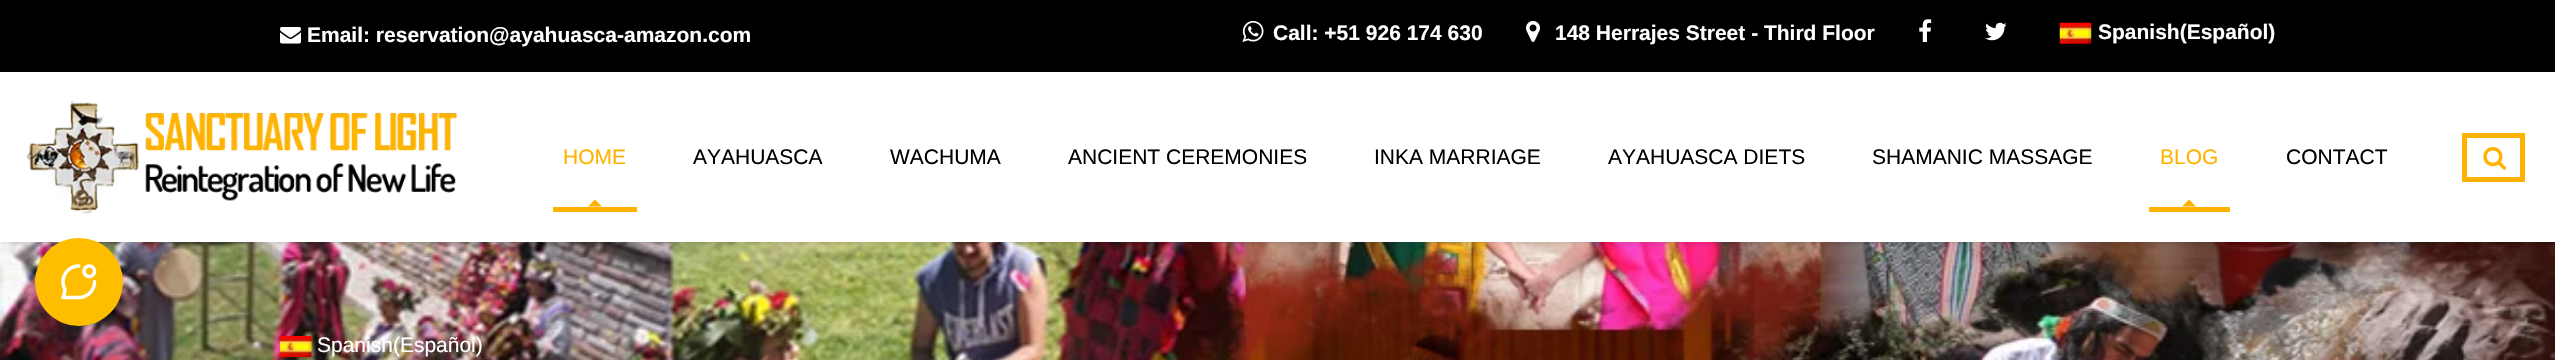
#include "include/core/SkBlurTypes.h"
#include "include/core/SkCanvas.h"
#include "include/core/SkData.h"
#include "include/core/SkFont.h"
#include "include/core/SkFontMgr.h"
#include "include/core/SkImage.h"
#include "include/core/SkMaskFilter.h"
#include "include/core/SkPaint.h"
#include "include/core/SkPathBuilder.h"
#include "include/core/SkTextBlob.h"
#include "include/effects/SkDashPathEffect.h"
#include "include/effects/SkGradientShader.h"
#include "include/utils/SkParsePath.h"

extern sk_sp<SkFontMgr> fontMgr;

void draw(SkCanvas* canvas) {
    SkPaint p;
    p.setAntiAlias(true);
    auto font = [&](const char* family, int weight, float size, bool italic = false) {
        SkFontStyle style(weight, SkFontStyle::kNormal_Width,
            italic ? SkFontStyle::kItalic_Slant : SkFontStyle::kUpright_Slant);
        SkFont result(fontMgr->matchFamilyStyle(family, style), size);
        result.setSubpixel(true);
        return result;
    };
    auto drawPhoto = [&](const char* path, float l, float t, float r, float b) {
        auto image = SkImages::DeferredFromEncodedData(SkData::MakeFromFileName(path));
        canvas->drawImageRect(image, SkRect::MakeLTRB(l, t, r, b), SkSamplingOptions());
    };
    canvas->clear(0xFFFFFFFF);
    drawPhoto("media/10.png", 0, 242, 2555, 360);
    p.setColor(0x26000000);
    p.setMaskFilter(SkMaskFilter::MakeBlur(kNormal_SkBlurStyle, 2.5f));
    canvas->drawRect(SkRect::MakeLTRB(0, 2, 2555, 243), p);
    p.setMaskFilter(nullptr);
    p.setColor(0xFF000000);
    canvas->drawRect(SkRect::MakeLTRB(0, 0, 2555, 72), p);
    drawPhoto("media/1.png", 280, 27, 301, 44);
    auto font1 = font("Liberation Sans", 700, 21);
    p.setColor(0xFFFFFFFF);
    canvas->drawString("Email: reservation@ayahuasca-amazon.com", 307, 42, font1, p);
    drawPhoto("media/2.png", 1242, 20, 1264, 42);
    canvas->drawString("Call: +51 926 174 630", 1273, 40, font1, p);
    drawPhoto("media/3.png", 1526, 21, 1540, 42);
    canvas->drawString("148 Herrajes Street - Third Floor", 1555, 40, font1, p);
    drawPhoto("media/4.png", 1919, 19, 1932, 42);
    drawPhoto("media/5.png", 1985, 22, 2007, 41);
    drawPhoto("media/6.png", 2059, 22, 2092, 44);
    canvas->drawString("Spanish(Español)", 2098, 39, font1, p);
    canvas->drawRect(SkRect::MakeLTRB(0, 72, 2555, 242), p);
    drawPhoto("media/7.png", 27, 100, 458, 214);
    auto font2 = font("Liberation Sans", 400, 21);
    p.setColor(0xFFFFB300);
    canvas->drawString("HOME", 563, 164, font2, p);
    canvas->drawPath(SkPathBuilder().moveTo(602, 206.5f).lineTo(588, 206.5f).lineTo(595, 199.5f).close().detach(), p);
    canvas->drawRect(SkRect::MakeLTRB(553, 207, 637, 212), p);
    p.setColor(0xFF000000);
    {
        const struct { const char* s; float x, y; } items[] = {
            {"AYAHUASCA", 693, 164},
            {"WACHUMA", 890, 164},
            {"ANCIENT CEREMONIES", 1068, 164},
            {"INKA MARRIAGE", 1374, 164},
            {"AYAHUASCA DIETS", 1608, 164},
            {"SHAMANIC MASSAGE", 1872, 164},
        };
        for (auto [s, x, y] : items) {
            canvas->drawString(s, x, y, font2, p);
        }
    }
    p.setColor(0xFFFFB300);
    canvas->drawString("BLOG", 2160, 164, font2, p);
    canvas->drawPath(SkPathBuilder().moveTo(2196, 206.5f).lineTo(2182, 206.5f).lineTo(2189, 199.5f).close().detach(), p);
    canvas->drawRect(SkRect::MakeLTRB(2149, 207, 2230, 212), p);
    p.setColor(0xFF000000);
    canvas->drawString("CONTACT", 2286, 164, font2, p);
    p.setStyle(SkPaint::kStroke_Style);
    p.setStrokeWidth(5);
    p.setColor(0xFFFFB300);
    canvas->drawRect(SkRect::MakeLTRB(2464.5f, 135.5f, 2522.5f, 179.5f), p);
    drawPhoto("media/8.png", 2483, 147, 2506, 170);
    p.setStyle(SkPaint::kFill_Style);
    p.setColor(0xFFFFBD00);
    canvas->drawCircle(79, 282, 44, p);
    drawPhoto("media/9.png", 61, 264, 97, 300);
    drawPhoto("media/11.png", 280, 336, 312, 357);
    p.setColor(0xFFFFFFFF);
    canvas->drawString("Spanish(Español)", 317, 352, font2, p);
}
